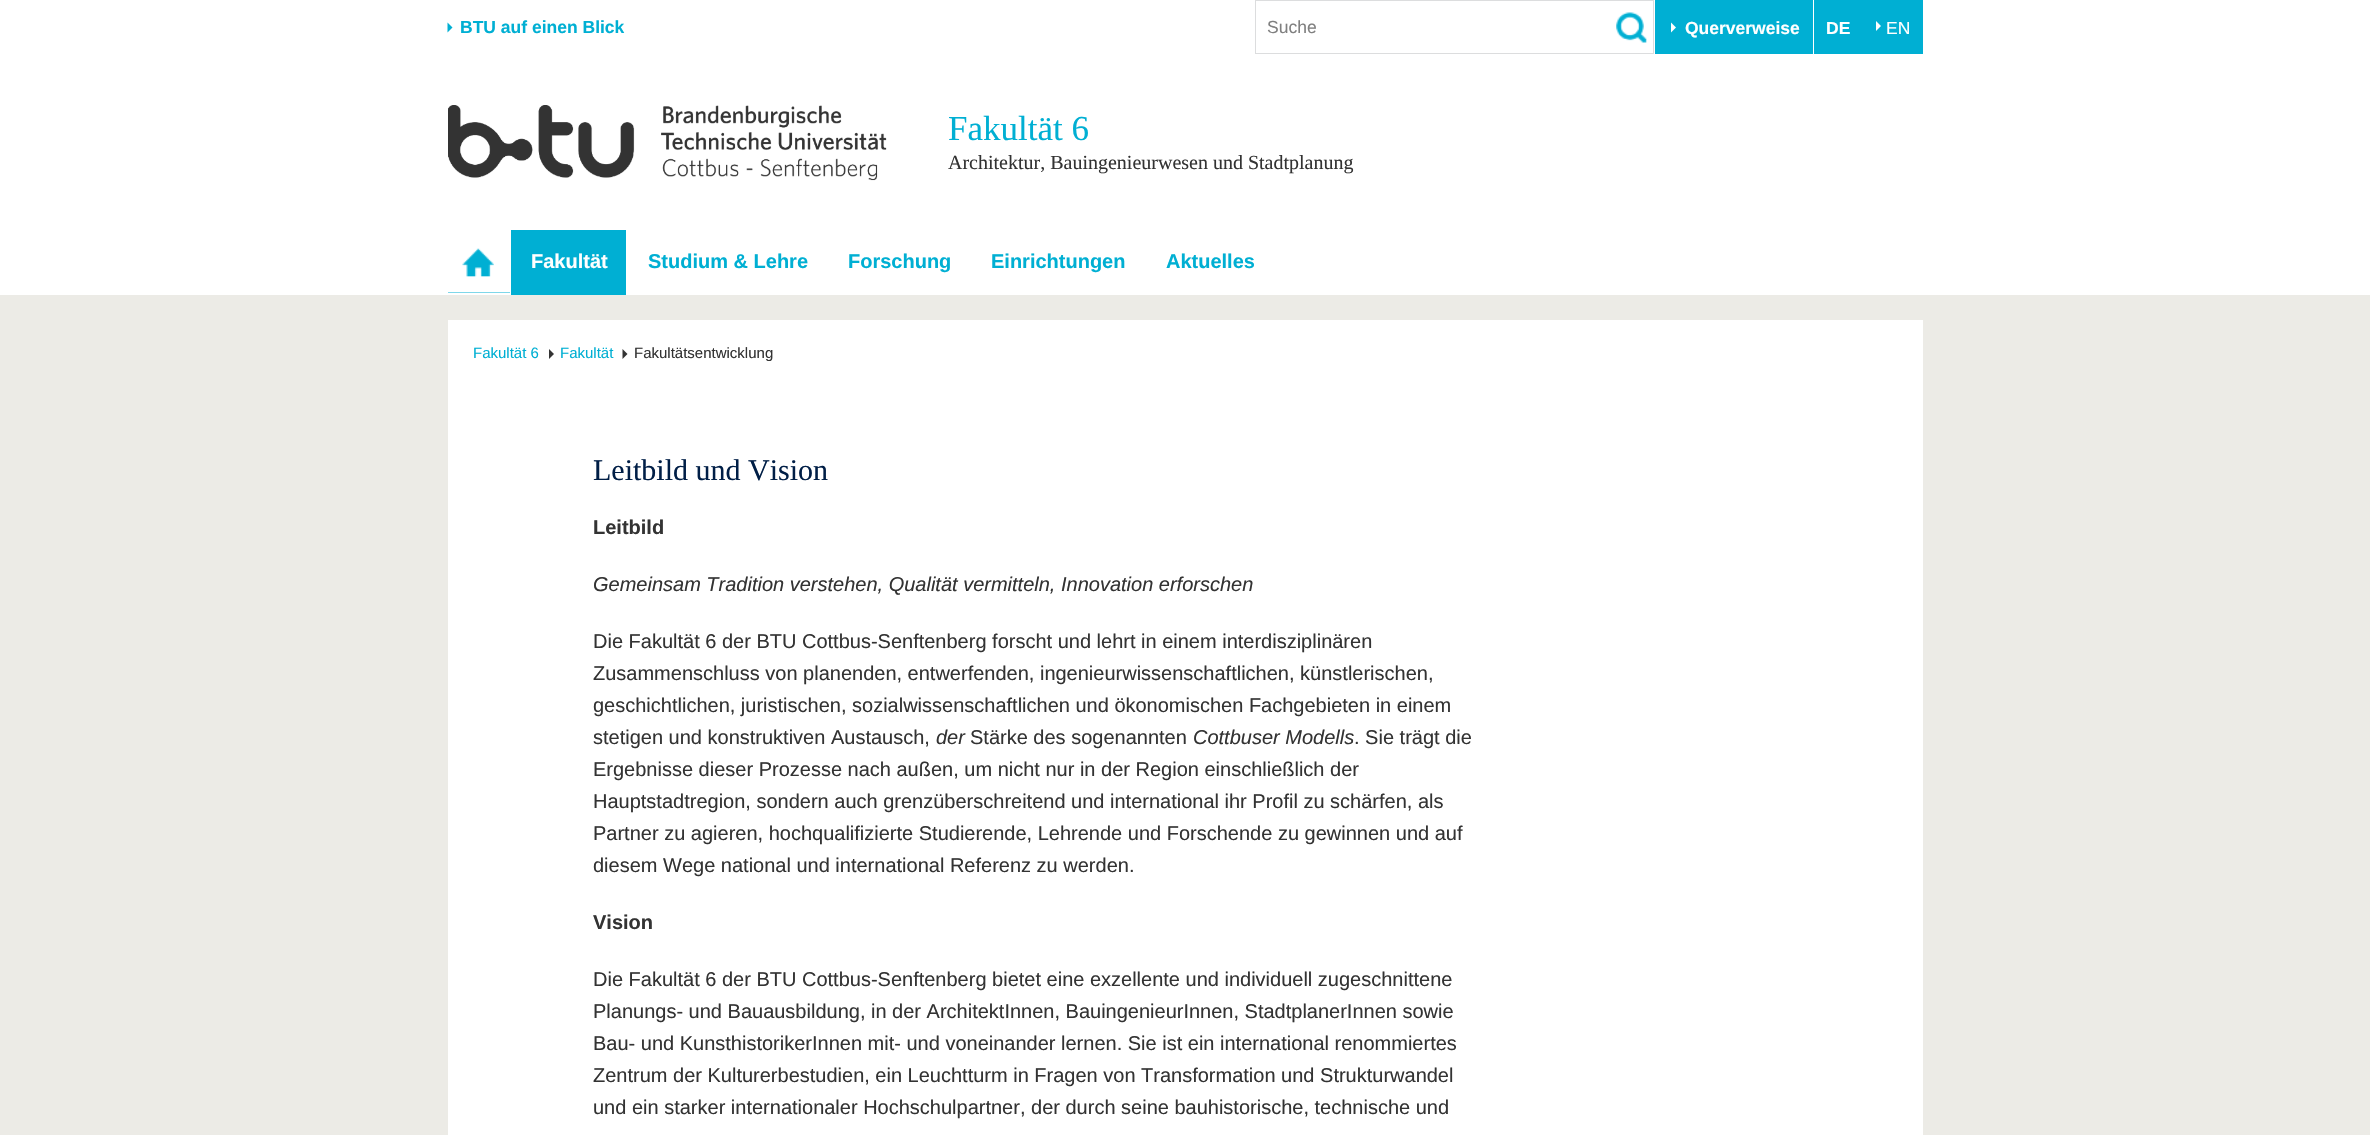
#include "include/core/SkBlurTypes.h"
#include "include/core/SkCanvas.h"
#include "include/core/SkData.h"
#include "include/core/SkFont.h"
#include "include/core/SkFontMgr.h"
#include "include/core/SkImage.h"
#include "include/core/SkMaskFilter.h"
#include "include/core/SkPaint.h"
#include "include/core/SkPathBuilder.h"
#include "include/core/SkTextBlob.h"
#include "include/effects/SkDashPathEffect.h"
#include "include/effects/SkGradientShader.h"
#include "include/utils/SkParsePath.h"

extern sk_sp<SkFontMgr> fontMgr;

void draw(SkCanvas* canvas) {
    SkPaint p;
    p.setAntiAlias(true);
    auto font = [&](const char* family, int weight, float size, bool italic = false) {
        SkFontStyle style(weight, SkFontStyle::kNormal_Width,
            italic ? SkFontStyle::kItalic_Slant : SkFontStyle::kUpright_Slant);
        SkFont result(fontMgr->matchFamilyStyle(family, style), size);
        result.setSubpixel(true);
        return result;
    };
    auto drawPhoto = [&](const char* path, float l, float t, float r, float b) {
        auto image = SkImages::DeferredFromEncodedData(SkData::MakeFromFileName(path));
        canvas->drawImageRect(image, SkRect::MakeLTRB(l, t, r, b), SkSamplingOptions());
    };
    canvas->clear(0xFFFFFFFF);
    p.setColor(0xFF00AFD3);
    canvas->drawPath(SkPathBuilder().moveTo(447.5f, 32.5f).lineTo(447.5f, 22.5f).lineTo(452.5f, 27.5f).close().detach(), p);
    auto font1 = font("Liberation Sans", 700, 17.5f);
    canvas->drawString("BTU auf einen Blick", 460, 33, font1, p);
    p.setStyle(SkPaint::kStroke_Style);
    p.setStrokeWidth(1);
    p.setColor(0xFFDCDDDE);
    canvas->drawRect(SkRect::MakeLTRB(1255.5f, 0.5f, 1653.5f, 53.5f), p);
    auto font2 = font("Liberation Sans", 400, 17.5f);
    p.setStyle(SkPaint::kFill_Style);
    p.setColor(0xFF808080);
    canvas->drawString("Suche", 1267, 33, font2, p);
    drawPhoto("media/1.png", 1616, 12, 1647, 43);
    p.setColor(0xFF00AFD3);
    canvas->drawRect(SkRect::MakeLTRB(1655, 0, 1813, 54), p);
    p.setColor(0xFFFFFFFF);
    canvas->drawPath(SkPathBuilder().moveTo(1671, 32.5f).lineTo(1671, 22.5f).lineTo(1676, 27.5f).close().detach(), p);
    canvas->drawString("Querverweise", 1685, 34, font1, p);
    p.setColor(0xFF00AFD3);
    canvas->drawRect(SkRect::MakeLTRB(1814, 0, 1923, 54), p);
    p.setColor(0xFFFFFFFF);
    canvas->drawString("DE", 1826, 34, font1, p);
    canvas->drawPath(SkPathBuilder().moveTo(1876, 31).lineTo(1876, 21).lineTo(1881, 26).close().detach(), p);
    canvas->drawString("EN", 1886, 34, font2, p);
    drawPhoto("media/2.png", 448, 105, 887, 181);
    auto font3 = font("Liberation Serif", 400, 35);
    p.setColor(0xFF00AFD3);
    canvas->drawString("Fakultät 6", 948, 140, font3, p);
    auto font4 = font("Liberation Serif", 400, 20);
    p.setColor(0xFF333333);
    canvas->drawString("Architektur, Bauingenieurwesen und Stadtplanung", 948, 169, font4, p);
    p.setColor(0xFF00AFD3);
    canvas->drawRect(SkRect::MakeLTRB(448, 248, 510, 293), p);
    drawPhoto("media/3.png", 448, 230, 510, 293);
    canvas->drawRect(SkRect::MakeLTRB(511, 230, 626, 295), p);
    auto font5 = font("Liberation Sans", 700, 20);
    p.setColor(0xFFFFFFFF);
    canvas->drawString("Fakultät", 531, 268, font5, p);
    p.setColor(0xFF00AFD3);
    {
        const struct { const char* s; float x, y; } items[] = {
            {"Studium & Lehre", 648, 268},
            {"Forschung", 848, 268},
            {"Einrichtungen", 991, 268},
            {"Aktuelles", 1166, 268},
        };
        for (auto [s, x, y] : items) {
            canvas->drawString(s, x, y, font5, p);
        }
    }
    p.setColor(0xFFECEBE6);
    canvas->drawRect(SkRect::MakeLTRB(0, 295, 2370, 1135), p);
    p.setColor(0xFFFFFFFF);
    canvas->drawRect(SkRect::MakeLTRB(448, 320, 1923, 1135), p);
    auto font6 = font("Liberation Sans", 400, 15);
    p.setColor(0xFF00AFD3);
    canvas->drawString("Fakultät 6", 473, 358, font6, p);
    p.setColor(0xFF333333);
    canvas->drawPath(SkPathBuilder().moveTo(549, 359).lineTo(549, 349).lineTo(554, 354).close().detach(), p);
    p.setColor(0xFF00AFD3);
    canvas->drawString("Fakultät", 560, 358, font6, p);
    p.setColor(0xFF333333);
    canvas->drawPath(SkPathBuilder().moveTo(622.5f, 359).lineTo(622.5f, 349).lineTo(627.5f, 354).close().detach(), p);
    canvas->drawString("Fakultätsentwicklung", 634, 358, font6, p);
    auto font7 = font("Liberation Serif", 400, 30);
    p.setColor(0xFF001E46);
    canvas->drawString("Leitbild und Vision", 593, 480, font7, p);
    p.setColor(0xFF333333);
    canvas->drawString("Leitbild", 593, 534, font5, p);
    auto font8 = font("Liberation Sans", 400, 20, true);
    canvas->drawString("Gemeinsam Tradition verstehen, Qualität vermitteln, Innovation erforschen", 593, 591, font8, p);
    auto font9 = font("Liberation Sans", 400, 20);
    {
        const struct { const char* s; float x, y; } items[] = {
            {"Die Fakultät 6 der BTU Cottbus-Senftenberg forscht und lehrt in einem interdisziplinären", 593, 648},
            {"Zusammenschluss von planenden, entwerfenden, ingenieurwissenschaftlichen, künstlerischen,", 593, 680},
            {"geschichtlichen, juristischen, sozialwissenschaftlichen und ökonomischen Fachgebieten in einem", 593, 712},
            {"stetigen und konstruktiven Austausch,", 593, 744},
        };
        for (auto [s, x, y] : items) {
            canvas->drawString(s, x, y, font9, p);
        }
    }
    canvas->drawString("der", 936, 744, font8, p);
    canvas->drawString("Stärke des sogenannten", 970, 744, font9, p);
    canvas->drawString("Cottbuser Modells", 1193, 744, font8, p);
    {
        const struct { const char* s; float x, y; } items[] = {
            {". Sie trägt die", 1354, 744},
            {"Ergebnisse dieser Prozesse nach außen, um nicht nur in der Region einschließlich der", 593, 776},
            {"Hauptstadtregion, sondern auch grenzüberschreitend und international ihr Profil zu schärfen, als", 593, 808},
            {"Partner zu agieren, hochqualifizierte Studierende, Lehrende und Forschende zu gewinnen und auf", 593, 840},
            {"diesem Wege national und international Referenz zu werden.", 593, 872},
        };
        for (auto [s, x, y] : items) {
            canvas->drawString(s, x, y, font9, p);
        }
    }
    canvas->drawString("Vision", 593, 929, font5, p);
    {
        const struct { const char* s; float x, y; } items[] = {
            {"Die Fakultät 6 der BTU Cottbus-Senftenberg bietet eine exzellente und individuell zugeschnittene", 593, 986},
            {"Planungs- und Bauausbildung, in der ArchitektInnen, BauingenieurInnen, StadtplanerInnen sowie", 593, 1018},
            {"Bau- und KunsthistorikerInnen mit- und voneinander lernen. Sie ist ein international renommiertes", 593, 1050},
            {"Zentrum der Kulturerbestudien, ein Leuchtturm in Fragen von Transformation und Strukturwandel", 593, 1082},
            {"und ein starker internationaler Hochschulpartner, der durch seine bauhistorische, technische und", 593, 1114},
        };
        for (auto [s, x, y] : items) {
            canvas->drawString(s, x, y, font9, p);
        }
    }
}
